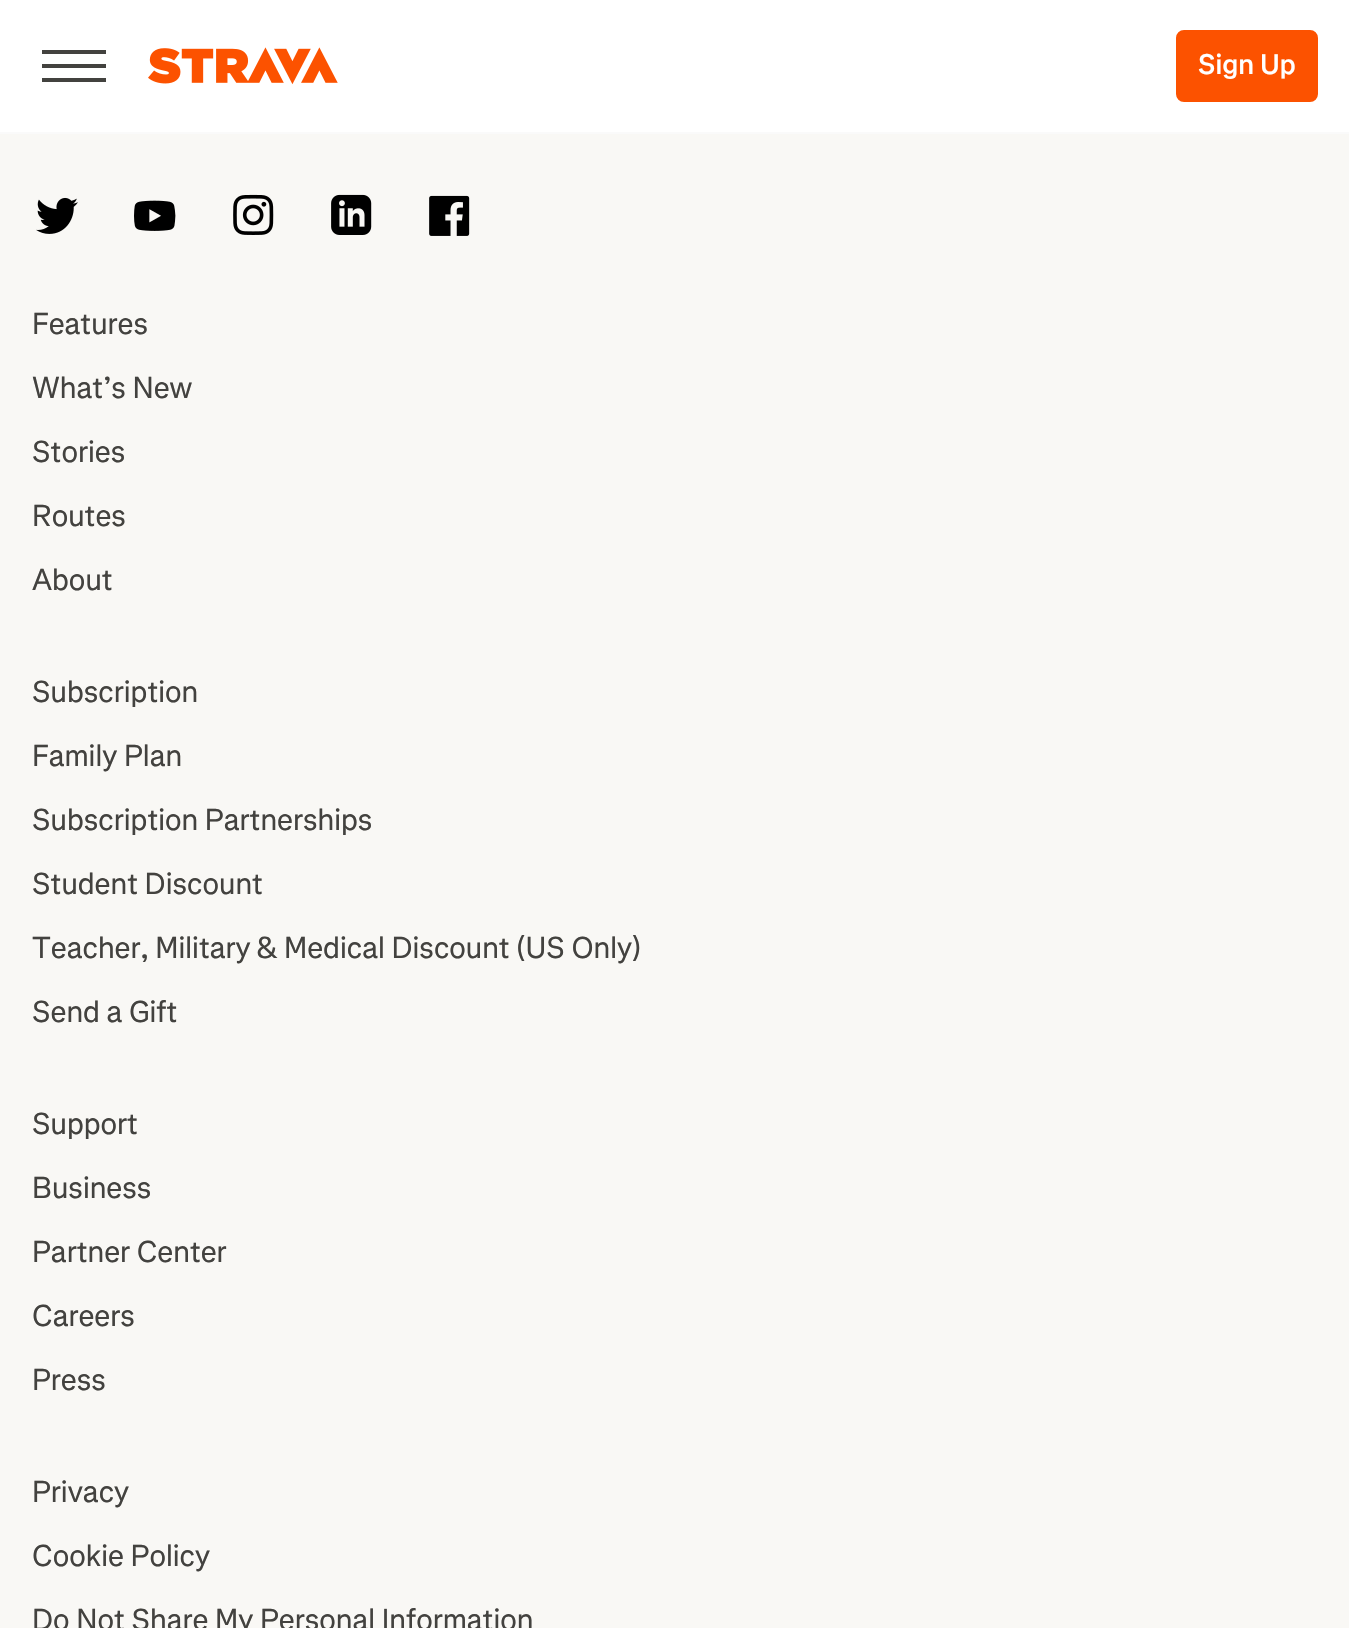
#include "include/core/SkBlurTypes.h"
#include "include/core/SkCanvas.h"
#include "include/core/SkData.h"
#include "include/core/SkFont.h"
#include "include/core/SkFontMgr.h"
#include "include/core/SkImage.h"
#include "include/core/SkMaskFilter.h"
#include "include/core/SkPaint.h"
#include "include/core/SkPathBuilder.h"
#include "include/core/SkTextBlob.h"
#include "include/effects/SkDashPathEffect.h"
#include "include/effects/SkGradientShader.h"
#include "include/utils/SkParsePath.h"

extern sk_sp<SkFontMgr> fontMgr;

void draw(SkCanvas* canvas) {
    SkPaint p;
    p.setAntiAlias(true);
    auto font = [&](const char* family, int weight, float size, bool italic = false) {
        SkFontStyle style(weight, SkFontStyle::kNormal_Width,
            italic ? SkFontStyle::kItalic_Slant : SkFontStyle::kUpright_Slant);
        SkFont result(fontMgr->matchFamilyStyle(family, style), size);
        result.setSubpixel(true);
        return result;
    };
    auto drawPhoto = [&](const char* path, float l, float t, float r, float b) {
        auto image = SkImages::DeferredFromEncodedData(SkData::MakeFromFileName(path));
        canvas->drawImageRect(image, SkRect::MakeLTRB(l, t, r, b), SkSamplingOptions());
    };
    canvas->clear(0xFFF9F8F5);
    {
        const struct { float l, t, r, b; SkColor color; } items[] = {
            {0, 0, 1349, 132, 0xFFFFFFFF},
            {0, 132, 1349, 134, 0xFFFAFAFA},
            {42, 50, 106, 54, 0xFF43423F},
            {42, 64, 106, 68, 0xFF43423F},
            {42, 78, 106, 82, 0xFF43423F},
        };
        for (auto [l, t, r, b, color] : items) {
            p.setColor(color);
            canvas->drawRect(SkRect::MakeLTRB(l, t, r, b), p);
        }
    }
    drawPhoto("media/1.png", 148, 47, 338, 85);
    p.setColor(0xFFFC5200);
    canvas->drawRoundRect(SkRect::MakeLTRB(1177, 31, 1317, 101), 7, 7, p);
    p.setStyle(SkPaint::kStroke_Style);
    p.setStrokeWidth(2);
    canvas->drawRoundRect(SkRect::MakeLTRB(1177, 31, 1317, 101), 7, 7, p);
    auto font1 = font("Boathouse", 500, 28);
    p.setStyle(SkPaint::kFill_Style);
    p.setColor(0xFFFFFFFF);
    canvas->drawString("Sign Up", 1198, 74, font1, p);
    drawPhoto("media/2.png", 36, 197, 78, 234);
    drawPhoto("media/3.png", 134, 200, 176, 231);
    drawPhoto("media/4.png", 233, 194, 274, 235);
    drawPhoto("media/5.png", 331, 194, 372, 235);
    drawPhoto("media/6.png", 429, 195, 470, 236);
    auto font2 = font("Boathouse", 400, 30);
    p.setColor(0xFF43423F);
    {
        const struct { const char* s; float x, y; } items[] = {
            {"Features", 32, 334},
            {"What’s New", 32, 398},
            {"Stories", 32, 462},
            {"Routes", 32, 526},
            {"About", 32, 590},
            {"Subscription", 32, 702},
            {"Family Plan", 32, 766},
            {"Subscription Partnerships", 32, 830},
            {"Student Discount", 32, 894},
            {"Teacher, Military & Medical Discount (US Only)", 32, 958},
            {"Send a Gift", 32, 1022},
            {"Support", 32, 1134},
            {"Business", 32, 1198},
            {"Partner Center", 32, 1262},
            {"Careers", 32, 1326},
            {"Press", 32, 1390},
            {"Privacy", 32, 1502},
            {"Cookie Policy", 32, 1566},
            {"Do Not Share My Personal Information", 32, 1630},
        };
        for (auto [s, x, y] : items) {
            canvas->drawString(s, x, y, font2, p);
        }
    }
}
